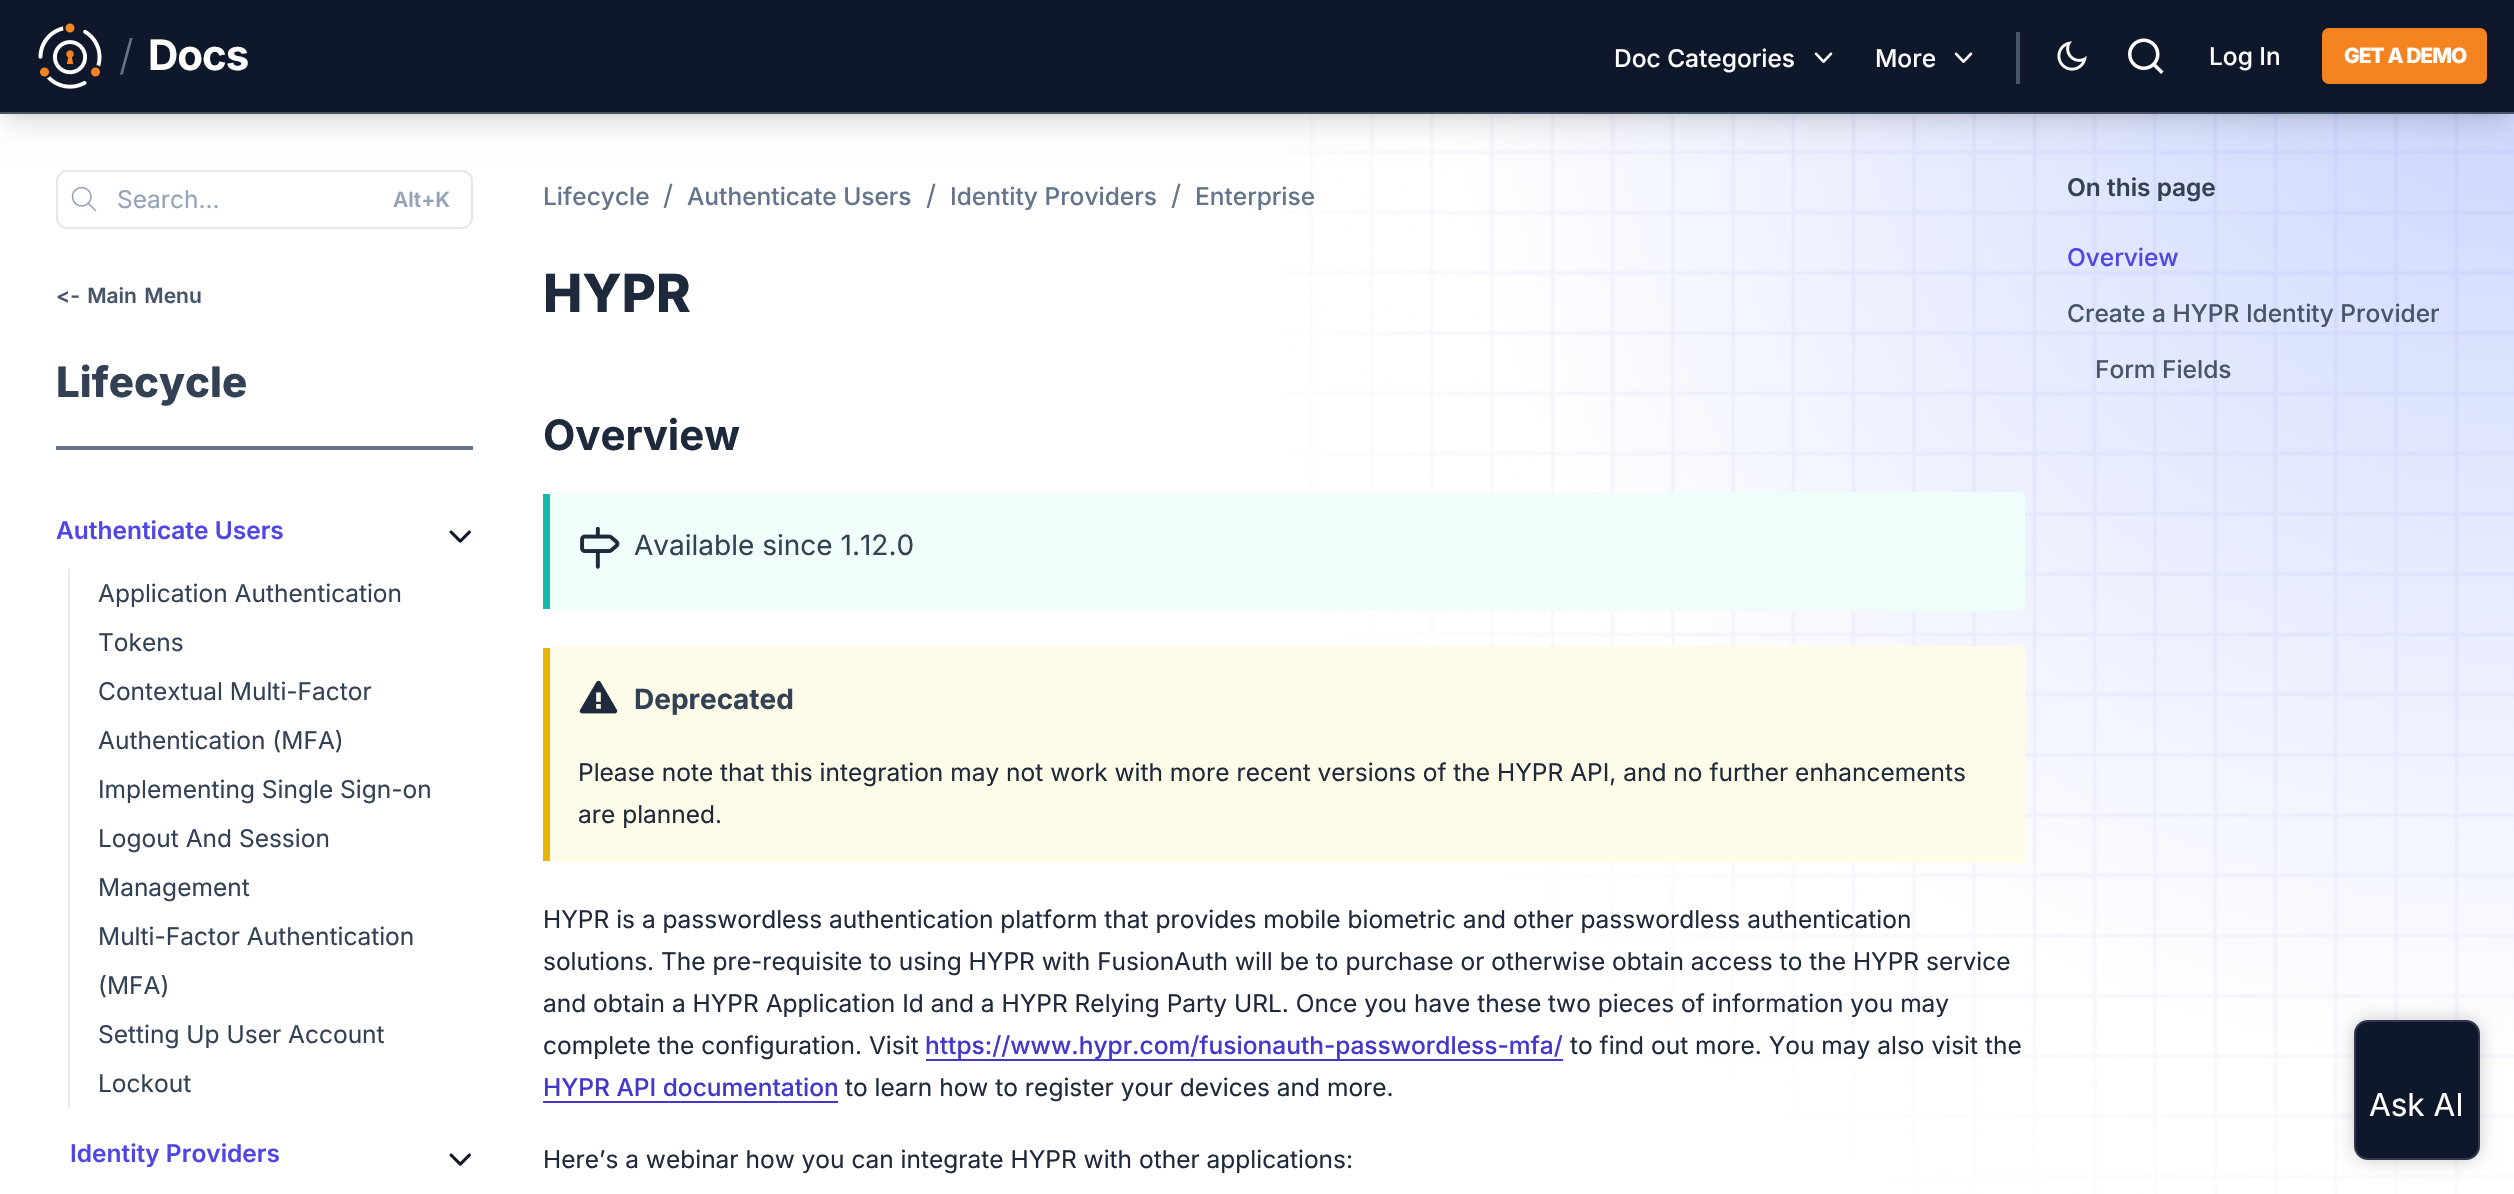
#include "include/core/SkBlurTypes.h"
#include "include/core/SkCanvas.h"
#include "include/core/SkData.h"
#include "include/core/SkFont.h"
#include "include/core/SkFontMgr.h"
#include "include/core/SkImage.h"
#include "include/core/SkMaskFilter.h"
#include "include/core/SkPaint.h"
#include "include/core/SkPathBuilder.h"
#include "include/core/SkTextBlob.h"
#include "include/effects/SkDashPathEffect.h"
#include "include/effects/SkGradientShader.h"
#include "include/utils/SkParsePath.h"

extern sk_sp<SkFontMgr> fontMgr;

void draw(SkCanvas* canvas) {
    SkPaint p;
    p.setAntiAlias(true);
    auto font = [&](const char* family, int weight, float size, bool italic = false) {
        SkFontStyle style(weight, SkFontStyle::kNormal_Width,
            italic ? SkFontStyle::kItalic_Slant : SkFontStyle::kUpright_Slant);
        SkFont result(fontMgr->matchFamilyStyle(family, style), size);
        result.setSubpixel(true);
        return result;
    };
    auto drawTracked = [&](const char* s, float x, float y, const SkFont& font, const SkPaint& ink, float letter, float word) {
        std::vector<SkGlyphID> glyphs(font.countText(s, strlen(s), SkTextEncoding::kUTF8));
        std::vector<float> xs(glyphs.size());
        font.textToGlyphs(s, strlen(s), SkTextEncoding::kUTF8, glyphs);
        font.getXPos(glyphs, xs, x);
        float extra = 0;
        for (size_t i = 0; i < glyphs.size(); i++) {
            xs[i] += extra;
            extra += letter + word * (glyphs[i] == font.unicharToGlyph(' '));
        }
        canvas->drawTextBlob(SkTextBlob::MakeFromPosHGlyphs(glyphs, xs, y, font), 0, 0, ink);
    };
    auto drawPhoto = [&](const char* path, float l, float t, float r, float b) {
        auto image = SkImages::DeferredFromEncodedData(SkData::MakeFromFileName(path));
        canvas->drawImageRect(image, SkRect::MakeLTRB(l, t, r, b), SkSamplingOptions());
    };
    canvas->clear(0xFFFFFFFF);
    drawPhoto("media/1.png", 1286, 114, 2514, 1194);
    p.setColor(0x1A000000);
    p.setMaskFilter(SkMaskFilter::MakeBlur(kNormal_SkBlurStyle, 5));
    canvas->drawRect(SkRect::MakeLTRB(7, 14, 2508, 114), p);
    p.setMaskFilter(nullptr);
    p.setMaskFilter(SkMaskFilter::MakeBlur(kNormal_SkBlurStyle, 13));
    canvas->drawRect(SkRect::MakeLTRB(5, 23, 2510, 126), p);
    p.setMaskFilter(nullptr);
    p.setColor(0xFF0F172A);
    canvas->drawRect(SkRect::MakeLTRB(0, 0, 2514, 112), p);
    p.setColor(0xFF475569);
    canvas->drawRect(SkRect::MakeLTRB(0, 112, 2514, 114), p);
    drawPhoto("media/2.png", 38, 23, 102, 89);
    auto font1 = font("Inter", 300, 42);
    p.setColor(0xFF64748B);
    canvas->drawString("/", 119, 70, font1, p);
    auto font2 = font("Inter", 700, 42);
    p.setColor(0xFFFFFFFF);
    drawTracked("Docs", 148, 70, font2, p, -1, 0);
    auto font3 = font("Inter", 500, 24.5f);
    canvas->drawString("Doc Categories", 1614, 67, font3, p);
    drawPhoto("media/3.png", 1814, 52, 1833, 63);
    canvas->drawString("More", 1875, 67, font3, p);
    drawPhoto("media/3.png", 1954, 52, 1973, 63);
    p.setColor(0xFF475569);
    canvas->drawRect(SkRect::MakeLTRB(2016, 32, 2020, 84), p);
    drawPhoto("media/4.png", 2057, 41, 2087, 71);
    drawPhoto("media/5.png", 2128, 38, 2164, 74);
    p.setColor(0xFFFFFFFF);
    canvas->drawString("Log In", 2209, 65, font3, p);
    p.setColor(0xFFF58320);
    canvas->drawRoundRect(SkRect::MakeLTRB(2322, 28, 2487, 84), 7, 7, p);
    auto font4 = font("Inter", 800, 21);
    p.setColor(0xFFFFFFFF);
    drawTracked("GET A DEMO", 2344, 63, font4, p, -1, 0);
    p.setStyle(SkPaint::kStroke_Style);
    p.setStrokeWidth(2);
    p.setColor(0x1A0F172A);
    canvas->drawRoundRect(SkRect::MakeLTRB(57, 171, 472, 228), 10, 10, p);
    drawPhoto("media/6.png", 71, 186, 97, 212);
    auto font5 = font("Inter", 400, 24.5f);
    p.setStyle(SkPaint::kFill_Style);
    p.setColor(0xFF94A3B8);
    canvas->drawString("Search...", 117, 208, font5, p);
    auto font6 = font("Inter", 600, 21);
    canvas->drawString("Alt+K", 393, 207, font6, p);
    p.setColor(0xFF475569);
    drawTracked("<- Main Menu", 56, 303, font6, p, 0, 2);
    auto font7 = font("Inter", 800, 42);
    p.setColor(0xFF334155);
    canvas->drawString("Lifecycle", 56, 397, font7, p);
    p.setColor(0xFF64748B);
    canvas->drawRect(SkRect::MakeLTRB(56, 446, 473, 450), p);
    auto font8 = font("Inter", 600, 24.5f);
    p.setColor(0xFF4F46E5);
    canvas->drawString("Authenticate Users", 56, 539, font8, p);
    drawPhoto("media/7.png", 449, 530, 471, 543);
    p.setColor(0xFFE2E8F0);
    canvas->drawRect(SkRect::MakeLTRB(68, 569, 70, 1108), p);
    p.setColor(0xFF334155);
    {
        const struct { const char* s; float x, y; } items[] = {
            {"Application Authentication", 98, 602},
            {"Tokens", 98, 651},
            {"Contextual Multi-Factor", 98, 700},
            {"Authentication (MFA)", 98, 749},
            {"Implementing Single Sign-on", 98, 798},
            {"Logout And Session", 98, 847},
            {"Management", 98, 896},
            {"Multi-Factor Authentication", 98, 945},
            {"(MFA)", 98, 994},
            {"Setting Up User Account", 98, 1043},
            {"Lockout", 98, 1092},
        };
        for (auto [s, x, y] : items) {
            canvas->drawString(s, x, y, font5, p);
        }
    }
    p.setColor(0xFF4F46E5);
    canvas->drawString("Identity Providers", 70, 1162, font8, p);
    drawPhoto("media/7.png", 449, 1153, 471, 1166);
    p.setColor(0xFF64748B);
    canvas->drawString("Lifecycle", 543, 205, font3, p);
    auto font9 = font("Inter", 400, 28);
    canvas->drawString("/", 663, 205, font9, p);
    canvas->drawString("Authenticate Users", 687, 205, font3, p);
    canvas->drawString("/", 926, 205, font9, p);
    canvas->drawString("Identity Providers", 950, 205, font3, p);
    canvas->drawString("/", 1171, 205, font9, p);
    canvas->drawString("Enterprise", 1195, 205, font3, p);
    auto font10 = font("Inter", 800, 52.5f);
    p.setColor(0xFF1E293B);
    canvas->drawString("HYPR", 543, 312, font10, p);
    canvas->drawString("Overview", 543, 450, font2, p);
    p.setColor(0xFFF0FDFA);
    canvas->drawPath(SkPathBuilder().moveTo(550, 492).lineTo(2021, 492).cubicTo(2023, 492, 2025, 493, 2025, 495).lineTo(2025, 607).cubicTo(2025, 609, 2023, 611, 2021, 611).lineTo(550, 611).close().detach(), p);
    p.setColor(0xFF14B8A6);
    canvas->drawRect(SkRect::MakeLTRB(543, 494, 550, 609), p);
    drawPhoto("media/8.png", 580, 527, 620, 569);
    p.setColor(0xFF334155);
    canvas->drawString("Available since 1.12.0", 634, 555, font9, p);
    p.setColor(0xFFFEFCE8);
    canvas->drawPath(SkPathBuilder().moveTo(550, 646).lineTo(2021, 646).cubicTo(2023, 646, 2025, 647, 2025, 649).lineTo(2025, 859).cubicTo(2025, 861, 2023, 863, 2021, 863).lineTo(550, 863).close().detach(), p);
    p.setColor(0xFFEAB308);
    canvas->drawRect(SkRect::MakeLTRB(543, 648, 550, 861), p);
    drawPhoto("media/9.png", 579, 681, 618, 714);
    auto font11 = font("Inter", 700, 28);
    p.setColor(0xFF334155);
    canvas->drawString("Deprecated", 634, 709, font11, p);
    p.setColor(0xFF1E293B);
    {
        const struct { const char* s; float x, y; } items[] = {
            {"Please note that this integration may not work with more recent versions of the HYPR API, and no further enhancements", 578, 781},
            {"are planned.", 578, 823},
            {"HYPR is a passwordless authentication platform that provides mobile biometric and other passwordless authentication", 543, 928},
            {"solutions. The pre-requisite to using HYPR with FusionAuth will be to purchase or otherwise obtain access to the HYPR service", 543, 970},
            {"and obtain a HYPR Application Id and a HYPR Relying Party URL. Once you have these two pieces of information you may", 543, 1012},
            {"complete the configuration. Visit", 543, 1054},
        };
        for (auto [s, x, y] : items) {
            canvas->drawString(s, x, y, font5, p);
        }
    }
    p.setColor(0xFF4338CA);
    canvas->drawRect(SkRect::MakeLTRB(926, 1059, 1563, 1061), p);
    canvas->drawString("https://www.hypr.com/fusionauth-passwordless-mfa/", 925, 1054, font3, p);
    p.setColor(0xFF1E293B);
    canvas->drawString("to find out more. You may also visit the", 1570, 1054, font5, p);
    p.setColor(0xFF4338CA);
    canvas->drawString("HYPR API documentation", 543, 1096, font3, p);
    canvas->drawRect(SkRect::MakeLTRB(543, 1101, 838, 1103), p);
    p.setColor(0xFF1E293B);
    canvas->drawString("to learn how to register your devices and more.", 845, 1096, font5, p);
    canvas->drawString("Here’s a webinar how you can integrate HYPR with other applications:", 543, 1168, font5, p);
    p.setColor(0xFF334155);
    canvas->drawString("On this page", 2067, 196, font8, p);
    p.setColor(0xFF4F46E5);
    canvas->drawString("Overview", 2067, 266, font3, p);
    p.setColor(0xFF475569);
    canvas->drawString("Create a HYPR Identity Provider", 2067, 322, font3, p);
    canvas->drawString("Form Fields", 2095, 378, font3, p);
    p.setColor(0x33000000);
    p.setMaskFilter(SkMaskFilter::MakeBlur(kNormal_SkBlurStyle, 9));
    canvas->drawRoundRect(SkRect::MakeLTRB(2354, 1020, 2480, 1160), 14, 14, p);
    p.setMaskFilter(nullptr);
    p.setColor(0xFF0F172A);
    canvas->drawRoundRect(SkRect::MakeLTRB(2355, 1021, 2479, 1159), 13, 13, p);
    p.setStyle(SkPaint::kStroke_Style);
    p.setColor(0xFF31374D);
    canvas->drawRoundRect(SkRect::MakeLTRB(2355, 1021, 2479, 1159), 13, 13, p);
    auto font12 = font("Inter", 400, 31.5f);
    p.setStyle(SkPaint::kFill_Style);
    p.setColor(0xFFFFFFFF);
    canvas->drawString("Ask AI", 2369, 1116, font12, p);
}
